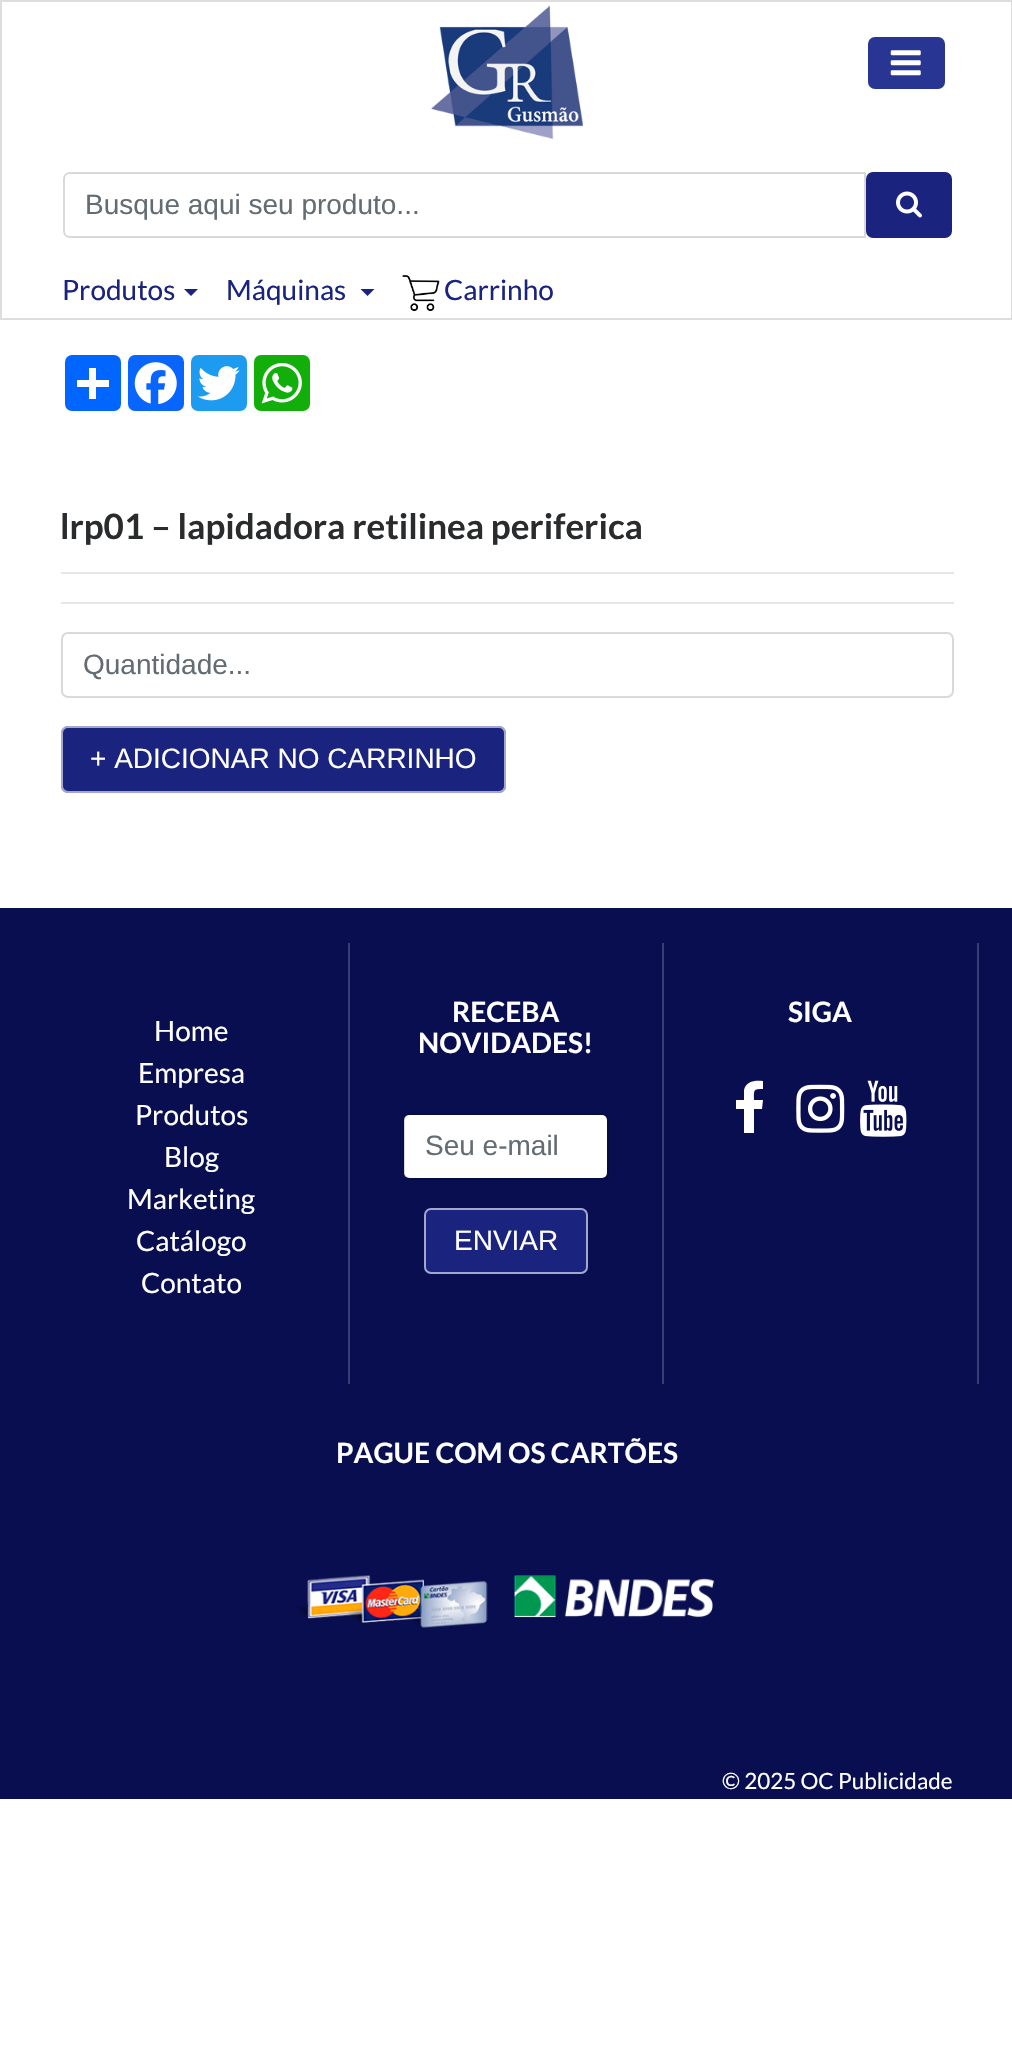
#include "include/core/SkBlurTypes.h"
#include "include/core/SkCanvas.h"
#include "include/core/SkData.h"
#include "include/core/SkFont.h"
#include "include/core/SkFontMgr.h"
#include "include/core/SkImage.h"
#include "include/core/SkMaskFilter.h"
#include "include/core/SkPaint.h"
#include "include/core/SkPathBuilder.h"
#include "include/core/SkTextBlob.h"
#include "include/effects/SkDashPathEffect.h"
#include "include/effects/SkGradientShader.h"
#include "include/utils/SkParsePath.h"

extern sk_sp<SkFontMgr> fontMgr;

void draw(SkCanvas* canvas) {
    SkPaint p;
    p.setAntiAlias(true);
    auto font = [&](const char* family, int weight, float size, bool italic = false) {
        SkFontStyle style(weight, SkFontStyle::kNormal_Width,
            italic ? SkFontStyle::kItalic_Slant : SkFontStyle::kUpright_Slant);
        SkFont result(fontMgr->matchFamilyStyle(family, style), size);
        result.setSubpixel(true);
        return result;
    };
    auto drawPhoto = [&](const char* path, float l, float t, float r, float b) {
        auto image = SkImages::DeferredFromEncodedData(SkData::MakeFromFileName(path));
        canvas->drawImageRect(image, SkRect::MakeLTRB(l, t, r, b), SkSamplingOptions());
    };
    canvas->clear(0xFFFFFFFF);
    p.setStyle(SkPaint::kStroke_Style);
    p.setStrokeWidth(2);
    p.setColor(0xFFDDDDDD);
    canvas->drawRect(SkRect::MakeLTRB(1, 1, 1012, 319), p);
    drawPhoto("media/1.png", 431, 5, 583, 139);
    p.setStyle(SkPaint::kFill_Style);
    p.setColor(0xFF283593);
    canvas->drawRoundRect(SkRect::MakeLTRB(868, 37, 945, 89), 7, 7, p);
    drawPhoto("media/2.png", 890, 50, 921, 76);
    p.setStyle(SkPaint::kStroke_Style);
    p.setColor(0xFFD9D9D9);
    canvas->drawPath(SkPathBuilder().moveTo(70, 173).lineTo(865, 173).lineTo(865, 237).lineTo(70, 237).cubicTo(66.5f, 237, 64, 234.5f, 64, 231).lineTo(64, 179).cubicTo(64, 175.5f, 66.5f, 173, 70, 173).close().detach(), p);
    auto font1 = font("Liberation Sans", 400, 28);
    p.setStyle(SkPaint::kFill_Style);
    p.setColor(0xFF636C72);
    canvas->drawString("Busque aqui seu produto...", 85, 214, font1, p);
    p.setColor(0xFF1A237E);
    canvas->drawRoundRect(SkRect::MakeLTRB(866, 172, 952, 238), 7, 7, p);
    drawPhoto("media/3.png", 896, 191, 922, 218);
    auto font2 = font("Lato", 400, 28);
    canvas->drawString("Produtos", 62, 300, font2, p);
    canvas->drawPath(SkPathBuilder().moveTo(184, 289).lineTo(198, 289).lineTo(191, 296).close().detach(), p);
    canvas->drawString("Máquinas", 226, 300, font2, p);
    canvas->drawPath(SkPathBuilder().moveTo(360.5f, 289).lineTo(374.5f, 289).lineTo(367.5f, 296).close().detach(), p);
    drawPhoto("media/4.png", 402, 274, 440, 312);
    canvas->drawString("Carrinho", 444, 300, font2, p);
    p.setColor(0xFF0166FF);
    canvas->drawRoundRect(SkRect::MakeLTRB(65, 355, 121, 411), 7, 7, p);
    p.setColor(0xFFFFFFFF);
    canvas->drawRect(SkRect::MakeLTRB(89, 368, 96, 399), p);
    canvas->drawRect(SkRect::MakeLTRB(77, 380, 109, 387), p);
    p.setColor(0xFF0866FF);
    canvas->drawRoundRect(SkRect::MakeLTRB(128, 355, 184, 411), 7, 7, p);
    drawPhoto("media/5.png", 134, 362, 177, 405);
    p.setColor(0xFF1D9BF0);
    canvas->drawRoundRect(SkRect::MakeLTRB(191, 355, 247, 411), 7, 7, p);
    drawPhoto("media/6.png", 198, 366, 240, 401);
    p.setColor(0xFF12AF0A);
    canvas->drawRoundRect(SkRect::MakeLTRB(254, 355, 310, 411), 7, 7, p);
    drawPhoto("media/7.png", 261, 363, 302, 404);
    auto font3 = font("Lato", 700, 35);
    p.setColor(0xFF292B2C);
    canvas->drawString("lrp01 – lapidadora retilinea periferica", 60, 539, font3, p);
    p.setColor(0xFFE6E6E6);
    canvas->drawRect(SkRect::MakeLTRB(61, 572, 954, 574), p);
    canvas->drawRect(SkRect::MakeLTRB(61, 602, 954, 604), p);
    p.setStyle(SkPaint::kStroke_Style);
    p.setColor(0xFFD9D9D9);
    canvas->drawRoundRect(SkRect::MakeLTRB(62, 633, 953, 697), 6, 6, p);
    p.setStyle(SkPaint::kFill_Style);
    p.setColor(0xFF636C72);
    canvas->drawString("Quantidade...", 83, 674, font1, p);
    p.setColor(0xFF1A237E);
    canvas->drawRoundRect(SkRect::MakeLTRB(61, 726, 506, 793), 7, 7, p);
    p.setStyle(SkPaint::kStroke_Style);
    p.setColor(0x99FFFFFF);
    canvas->drawRoundRect(SkRect::MakeLTRB(62, 727, 505, 792), 6, 6, p);
    p.setStyle(SkPaint::kFill_Style);
    p.setColor(0xFFFFFFFF);
    canvas->drawString("+ ADICIONAR NO CARRINHO", 90, 768, font1, p);
    p.setColor(0xFF080E4F);
    canvas->drawRect(SkRect::MakeLTRB(0, 908, 1012, 1799), p);
    p.setColor(0xFF393E72);
    canvas->drawRect(SkRect::MakeLTRB(662, 943, 664, 1384), p);
    auto font4 = font("Lato", 700, 28);
    p.setColor(0xFFFFFFFF);
    canvas->drawString("RECEBA", 452, 1022, font4, p);
    canvas->drawString("NOVIDADES!", 418, 1053, font4, p);
    canvas->drawRoundRect(SkRect::MakeLTRB(404, 1115, 607, 1178), 5, 5, p);
    p.setStyle(SkPaint::kStroke_Style);
    p.setColor(0x26000000);
    canvas->drawRoundRect(SkRect::MakeLTRB(404, 1114, 608, 1179), 6, 6, p);
    p.setStyle(SkPaint::kFill_Style);
    p.setColor(0xFF636C72);
    canvas->drawString("Seu e-mail", 425, 1155, font1, p);
    p.setColor(0xFF1A237E);
    canvas->drawRoundRect(SkRect::MakeLTRB(424, 1208, 588, 1274), 7, 7, p);
    p.setStyle(SkPaint::kStroke_Style);
    p.setColor(0x99FFFFFF);
    canvas->drawRoundRect(SkRect::MakeLTRB(425, 1209, 587, 1273), 6, 6, p);
    p.setStyle(SkPaint::kFill_Style);
    p.setColor(0xFFFFFFFF);
    canvas->drawString("ENVIAR", 454, 1250, font1, p);
    p.setColor(0xFF393E72);
    canvas->drawRect(SkRect::MakeLTRB(977, 943, 979, 1384), p);
    p.setColor(0xFFFFFFFF);
    canvas->drawString("SIGA", 788, 1022, font4, p);
    canvas->drawPath(SkPathBuilder().moveTo(763, 1081).lineTo(763, 1089).cubicTo(753, 1089, 754, 1090, 754, 1100).lineTo(763, 1100).lineTo(762, 1109).lineTo(754, 1109).lineTo(754, 1133).lineTo(744, 1133).lineTo(744, 1109).lineTo(736, 1109).lineTo(736, 1100).lineTo(744, 1100).lineTo(744, 1090).cubicTo(746, 1081, 755, 1080, 763, 1081).close().detach(), p);
    drawPhoto("media/8.png", 796, 1084, 845, 1133);
    drawPhoto("media/9.png", 860, 1080, 907, 1137);
    p.setColor(0xFF393E72);
    canvas->drawRect(SkRect::MakeLTRB(348, 943, 350, 1384), p);
    p.setColor(0xFFFFFFFF);
    {
        const struct { const char* s; float x, y; } items[] = {
            {"Home", 154, 1041},
            {"Empresa", 138, 1083},
            {"Produtos", 135, 1125},
            {"Blog", 164, 1167},
            {"Marketing", 127, 1209},
            {"Catálogo", 136, 1251},
            {"Contato", 141, 1293},
        };
        for (auto [s, x, y] : items) {
            canvas->drawString(s, x, y, font2, p);
        }
    }
    canvas->drawString("PAGUE COM OS CARTÕES", 336, 1463, font4, p);
    drawPhoto("media/10.png", 297, 1575, 488, 1628);
    drawPhoto("media/11.png", 514, 1575, 715, 1618);
    auto font5 = font("Lato", 400, 22.4f);
    canvas->drawString("© 2025 OC Publicidade", 722, 1789, font5, p);
}
